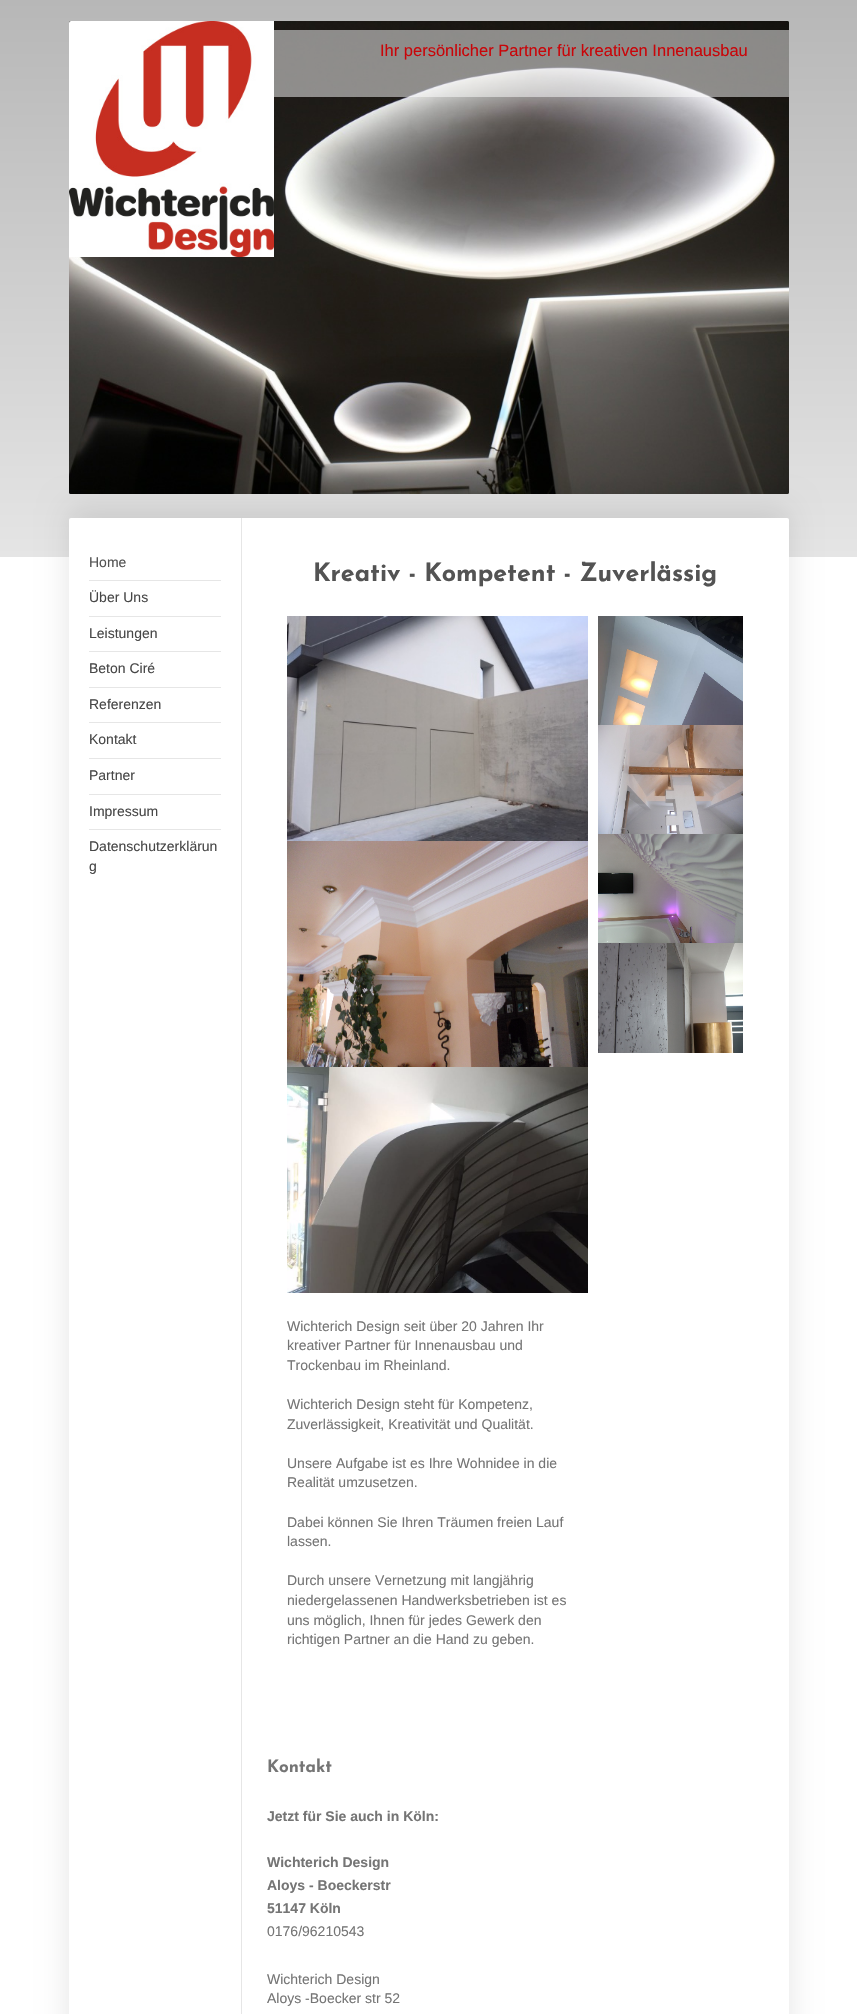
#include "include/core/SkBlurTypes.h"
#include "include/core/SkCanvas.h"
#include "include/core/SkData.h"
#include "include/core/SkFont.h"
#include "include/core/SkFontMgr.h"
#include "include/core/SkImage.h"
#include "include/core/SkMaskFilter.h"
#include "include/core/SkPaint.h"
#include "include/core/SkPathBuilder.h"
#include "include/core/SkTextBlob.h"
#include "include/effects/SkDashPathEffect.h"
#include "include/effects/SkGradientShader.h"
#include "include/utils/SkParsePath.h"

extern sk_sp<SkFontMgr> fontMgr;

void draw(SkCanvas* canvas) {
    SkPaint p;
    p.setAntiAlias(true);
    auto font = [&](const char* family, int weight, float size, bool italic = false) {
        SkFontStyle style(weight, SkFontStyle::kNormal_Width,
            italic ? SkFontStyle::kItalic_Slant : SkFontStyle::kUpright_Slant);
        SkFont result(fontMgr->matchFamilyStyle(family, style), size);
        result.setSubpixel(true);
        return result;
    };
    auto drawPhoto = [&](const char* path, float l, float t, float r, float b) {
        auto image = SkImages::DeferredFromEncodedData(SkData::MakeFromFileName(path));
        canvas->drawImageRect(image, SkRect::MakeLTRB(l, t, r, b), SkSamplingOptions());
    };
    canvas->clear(0xFFFFFFFF);
    {
        const SkColor colors[] = {0xFFE5E5E5, 0xFFB7B7B7};
        const float stops[] = {0, 1};
        const SkPoint ends[] = {{0, 557}, {0, 0}};
        p.setShader(SkGradientShader::MakeLinear(ends, colors, stops, 2, SkTileMode::kClamp));
        p.setAlpha(255);
    }
    canvas->drawRect(SkRect::MakeLTRB(0, 0, 857, 557), p);
    drawPhoto("media/1.png", 69, 21, 789, 494);
    p.setShader(nullptr);
    p.setColor(0x1A000000);
    p.setMaskFilter(SkMaskFilter::MakeBlur(kNormal_SkBlurStyle, 15));
    canvas->drawRoundRect(SkRect::MakeLTRB(69, 508, 789, 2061), 2, 2, p);
    p.setMaskFilter(nullptr);
    drawPhoto("media/2.png", 69, 21, 789, 494);
    drawPhoto("media/3.png", 69, 21, 274, 257);
    p.setColor(0x80FFFFFF);
    canvas->drawRect(SkRect::MakeLTRB(274, 30, 789, 97), p);
    auto font1 = font("Liberation Sans", 400, 16.5f);
    p.setColor(0xFFC90509);
    canvas->drawString("Ihr persönlicher Partner für kreativen Innenausbau", 380, 56, font1, p);
    p.setColor(0xFFFFFFFF);
    canvas->drawRoundRect(SkRect::MakeLTRB(69, 518, 789, 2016), 2, 2, p);
    p.setColor(0xFFE6E6E6);
    canvas->drawRect(SkRect::MakeLTRB(89, 580, 221, 581), p);
    auto font2 = font("Liberation Sans", 400, 14);
    p.setColor(0xFF535353);
    canvas->drawString("Home", 89, 567, font2, p);
    p.setColor(0xFFE6E6E6);
    canvas->drawRect(SkRect::MakeLTRB(89, 616, 221, 617), p);
    p.setColor(0xFF474747);
    canvas->drawString("Über Uns", 89, 602, font2, p);
    p.setColor(0xFFE6E6E6);
    canvas->drawRect(SkRect::MakeLTRB(89, 651, 221, 652), p);
    p.setColor(0xFF474747);
    canvas->drawString("Leistungen", 89, 638, font2, p);
    p.setColor(0xFFE6E6E6);
    canvas->drawRect(SkRect::MakeLTRB(89, 687, 221, 688), p);
    p.setColor(0xFF474747);
    canvas->drawString("Beton Ciré", 89, 673, font2, p);
    p.setColor(0xFFE6E6E6);
    canvas->drawRect(SkRect::MakeLTRB(89, 722, 221, 723), p);
    p.setColor(0xFF474747);
    canvas->drawString("Referenzen", 89, 709, font2, p);
    p.setColor(0xFFE6E6E6);
    canvas->drawRect(SkRect::MakeLTRB(89, 758, 221, 759), p);
    p.setColor(0xFF474747);
    canvas->drawString("Kontakt", 89, 744, font2, p);
    p.setColor(0xFFE6E6E6);
    canvas->drawRect(SkRect::MakeLTRB(89, 794, 221, 795), p);
    p.setColor(0xFF474747);
    canvas->drawString("Partner", 89, 780, font2, p);
    p.setColor(0xFFE6E6E6);
    canvas->drawRect(SkRect::MakeLTRB(89, 829, 221, 830), p);
    p.setColor(0xFF474747);
    {
        const struct { const char* s; float x, y; } items[] = {
            {"Impressum", 89, 816},
            {"Datenschutzerklärun", 89, 851},
            {"g", 89, 871},
        };
        for (auto [s, x, y] : items) {
            canvas->drawString(s, x, y, font2, p);
        }
    }
    p.setColor(0xFFE6E6E6);
    canvas->drawRect(SkRect::MakeLTRB(241, 518, 242, 2014), p);
    auto font3 = font("Josefin Sans", 700, 25);
    p.setColor(0xFF535353);
    canvas->drawString("Kreativ - Kompetent - Zuverlässig", 313, 581, font3, p);
    drawPhoto("media/4.png", 287, 616, 588, 841);
    drawPhoto("media/5.png", 287, 841, 588, 1067);
    drawPhoto("media/6.png", 287, 1067, 588, 1293);
    drawPhoto("media/7.png", 598, 616, 743, 725);
    drawPhoto("media/8.png", 598, 725, 743, 834);
    drawPhoto("media/9.png", 598, 834, 743, 943);
    drawPhoto("media/10.png", 598, 943, 743, 1053);
    p.setColor(0xFF757575);
    {
        const struct { const char* s; float x, y; } items[] = {
            {"Wichterich Design seit über 20 Jahren Ihr", 287, 1331},
            {"kreativer Partner für Innenausbau und", 287, 1350},
            {"Trockenbau im Rheinland.", 287, 1370},
            {"Wichterich Design steht für Kompetenz,", 287, 1409},
            {"Zuverlässigkeit, Kreativität und Qualität.", 287, 1429},
            {"Unsere Aufgabe ist es Ihre Wohnidee in die", 287, 1468},
            {"Realität umzusetzen.", 287, 1487},
            {"Dabei können Sie Ihren Träumen freien Lauf", 287, 1527},
            {"lassen.", 287, 1546},
            {"Durch unsere Vernetzung mit langjährig", 287, 1585},
            {"niedergelassenen Handwerksbetrieben ist es", 287, 1605},
            {"uns möglich, Ihnen für jedes Gewerk den", 287, 1625},
            {"richtigen Partner an die Hand zu geben.", 287, 1644},
        };
        for (auto [s, x, y] : items) {
            canvas->drawString(s, x, y, font2, p);
        }
    }
    auto font4 = font("Josefin Sans", 700, 17);
    canvas->drawString("Kontakt", 267, 1772, font4, p);
    auto font5 = font("Liberation Sans", 700, 14);
    {
        const struct { const char* s; float x, y; } items[] = {
            {"Jetzt für Sie auch in Köln:", 267, 1821},
            {"Wichterich Design", 267, 1867},
            {"Aloys - Boeckerstr", 267, 1890},
            {"51147 Köln", 267, 1913},
        };
        for (auto [s, x, y] : items) {
            canvas->drawString(s, x, y, font5, p);
        }
    }
    {
        const struct { const char* s; float x, y; } items[] = {
            {"0176/96210543", 267, 1936},
            {"Wichterich Design", 267, 1984},
            {"Aloys -Boecker str 52", 267, 2003},
        };
        for (auto [s, x, y] : items) {
            canvas->drawString(s, x, y, font2, p);
        }
    }
}
